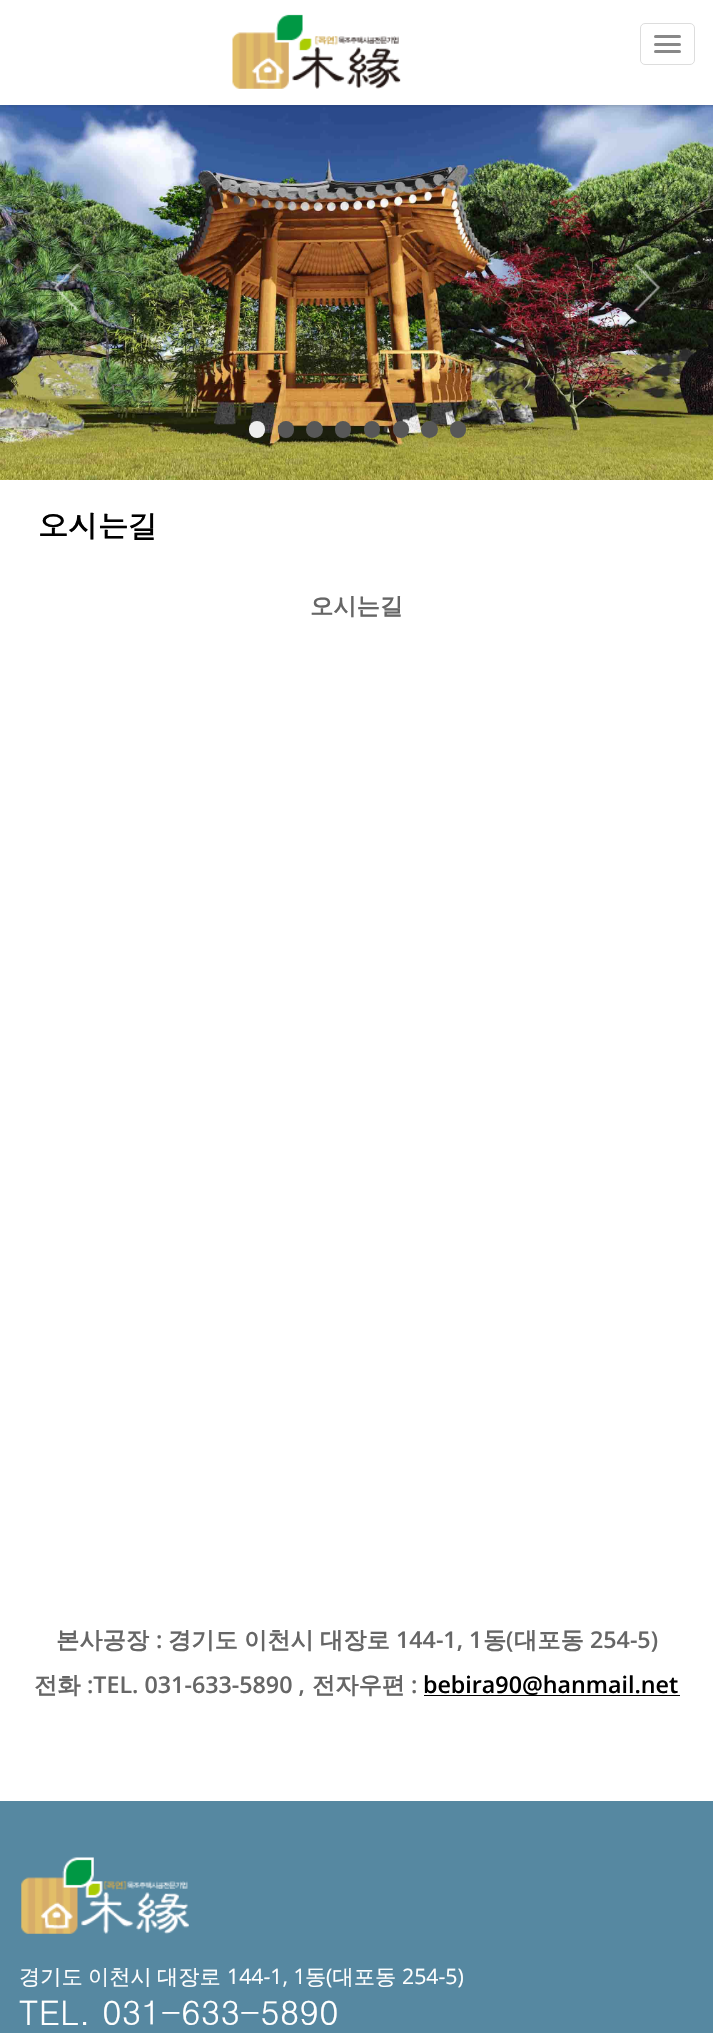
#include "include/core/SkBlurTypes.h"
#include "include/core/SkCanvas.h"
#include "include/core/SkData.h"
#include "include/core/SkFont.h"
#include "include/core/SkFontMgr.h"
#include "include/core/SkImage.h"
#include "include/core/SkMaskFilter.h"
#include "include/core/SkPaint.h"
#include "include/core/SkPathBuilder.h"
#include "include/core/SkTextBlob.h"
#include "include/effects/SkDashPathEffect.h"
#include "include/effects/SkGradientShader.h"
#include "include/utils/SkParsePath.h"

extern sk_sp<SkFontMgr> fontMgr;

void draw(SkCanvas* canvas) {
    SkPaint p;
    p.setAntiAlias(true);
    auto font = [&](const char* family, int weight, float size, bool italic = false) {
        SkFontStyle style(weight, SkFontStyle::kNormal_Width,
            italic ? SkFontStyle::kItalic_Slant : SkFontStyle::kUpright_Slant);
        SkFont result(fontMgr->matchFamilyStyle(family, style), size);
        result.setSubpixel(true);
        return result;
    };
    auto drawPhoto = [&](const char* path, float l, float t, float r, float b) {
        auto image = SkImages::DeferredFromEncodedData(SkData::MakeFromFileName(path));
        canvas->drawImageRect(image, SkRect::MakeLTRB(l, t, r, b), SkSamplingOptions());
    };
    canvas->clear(0xFFFFFFFF);
    drawPhoto("media/2.png", 0, 105, 713, 480);
    canvas->save();
    canvas->clipRect(SkRect::MakeLTRB(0, 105, 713, 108));
    p.setColor(0x1F000000);
    p.setMaskFilter(SkMaskFilter::MakeBlur(kNormal_SkBlurStyle, 2));
    canvas->drawRect(SkRect::MakeLTRB(0, 1, 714, 106), p);
    p.setMaskFilter(nullptr);
    canvas->restore();
    drawPhoto("media/1.png", 232, 14, 401, 89);
    p.setStyle(SkPaint::kStroke_Style);
    p.setStrokeWidth(1);
    p.setColor(0xFFDDDDDD);
    canvas->drawRoundRect(SkRect::MakeLTRB(640.5f, 23.5f, 694.5f, 64.5f), 4.5f, 4.5f, p);
    p.setStyle(SkPaint::kFill_Style);
    p.setColor(0xFF888888);
    canvas->drawRoundRect(SkRect::MakeLTRB(654, 35, 681, 38), 1.5f, 1.5f, p);
    canvas->drawRoundRect(SkRect::MakeLTRB(654, 43, 681, 46), 1.5f, 1.5f, p);
    canvas->drawRoundRect(SkRect::MakeLTRB(654, 50, 681, 53), 1.5f, 1.5f, p);
    drawPhoto("media/3.png", 53, 263, 79, 312);
    drawPhoto("media/4.png", 635, 263, 661, 312);
    p.setColor(0xFFEEEEEE);
    canvas->drawRoundRect(SkRect::MakeLTRB(249, 421, 265, 438), 8, 8, p);
    p.setColor(0xFF575757);
    canvas->drawRoundRect(SkRect::MakeLTRB(278, 421, 294, 438), 8, 8, p);
    canvas->drawCircle(314.5f, 429.5f, 8.5f, p);
    canvas->drawRoundRect(SkRect::MakeLTRB(335, 421, 351, 438), 8, 8, p);
    canvas->drawRoundRect(SkRect::MakeLTRB(364, 421, 380, 438), 8, 8, p);
    canvas->drawRoundRect(SkRect::MakeLTRB(393, 421, 409, 438), 8, 8, p);
    canvas->drawCircle(429.5f, 429.5f, 8.5f, p);
    canvas->drawRoundRect(SkRect::MakeLTRB(450, 421, 466, 438), 8, 8, p);
    auto font1 = font("Dotum", 700, 30);
    p.setColor(0xFF000000);
    canvas->drawString("오시는길", 38, 538, font1, p);
    auto font2 = font("WenQuanYi Zen Hei", 700, 23.25f);
    p.setColor(0xFF666666);
    canvas->drawString("오시는길", 310, 614, font2, p);
    canvas->drawString("본사공장", 56, 1648, font2, p);
    auto font3 = font("Open Sans", 600, 23.25f);
    canvas->drawString(":", 156, 1648, font3, p);
    {
        const struct { const char* s; float x, y; } items[] = {
            {"경기도", 168, 1648},
            {"이천시", 244, 1648},
            {"대장로", 320, 1648},
        };
        for (auto [s, x, y] : items) {
            canvas->drawString(s, x, y, font2, p);
        }
    }
    canvas->drawString("144-1, 1", 396, 1648, font3, p);
    canvas->drawString("동", 483, 1648, font2, p);
    canvas->drawString("(", 506, 1648, font3, p);
    canvas->drawString("대포동", 514, 1648, font2, p);
    canvas->drawString("254-5)", 590, 1648, font3, p);
    canvas->drawString("전화", 34, 1693, font2, p);
    canvas->drawString(":TEL. 031-633-5890 ,", 87, 1693, font3, p);
    canvas->drawString("전자우편", 312, 1693, font2, p);
    canvas->drawString(":", 411, 1693, font3, p);
    p.setColor(0xFF000000);
    canvas->drawRect(SkRect::MakeLTRB(424, 1695, 680, 1696), p);
    canvas->drawString("bebira90@hanmail.net", 423, 1693, font3, p);
    p.setColor(0xFF5688A1);
    canvas->drawRect(SkRect::MakeLTRB(0, 1801, 713, 2033), p);
    drawPhoto("media/5.png", 21, 1857, 189, 1934);
    auto font4 = font("WenQuanYi Zen Hei", 500, 21.25f);
    p.setColor(0xFFFFFFFF);
    {
        const struct { const char* s; float x, y; } items[] = {
            {"경기도", 19, 1984},
            {"이천시", 88, 1984},
            {"대장로", 157, 1984},
        };
        for (auto [s, x, y] : items) {
            canvas->drawString(s, x, y, font4, p);
        }
    }
    auto font5 = font("Open Sans", 400, 21.25f);
    canvas->drawString("144-1, 1", 227, 1984, font5, p);
    canvas->drawString("동 대포동", 305, 1984, font4, p);
    canvas->drawString("(", 326, 1984, font5, p);
    canvas->drawString("254-5)", 402, 1984, font5, p);
    auto font6 = font("Dotum", 400, 33.75f);
    canvas->drawString("TEL. 031-633-5890", 19, 2025, font6, p);
}
